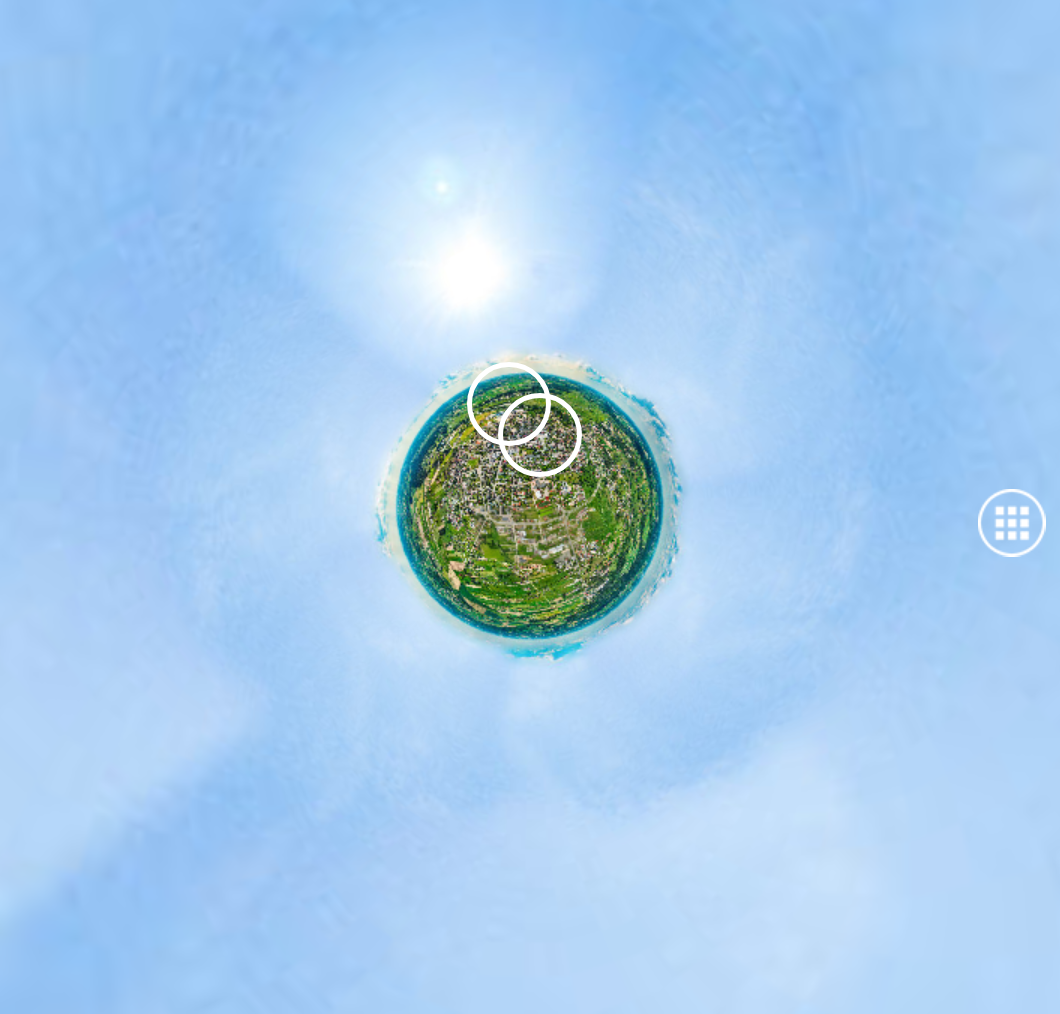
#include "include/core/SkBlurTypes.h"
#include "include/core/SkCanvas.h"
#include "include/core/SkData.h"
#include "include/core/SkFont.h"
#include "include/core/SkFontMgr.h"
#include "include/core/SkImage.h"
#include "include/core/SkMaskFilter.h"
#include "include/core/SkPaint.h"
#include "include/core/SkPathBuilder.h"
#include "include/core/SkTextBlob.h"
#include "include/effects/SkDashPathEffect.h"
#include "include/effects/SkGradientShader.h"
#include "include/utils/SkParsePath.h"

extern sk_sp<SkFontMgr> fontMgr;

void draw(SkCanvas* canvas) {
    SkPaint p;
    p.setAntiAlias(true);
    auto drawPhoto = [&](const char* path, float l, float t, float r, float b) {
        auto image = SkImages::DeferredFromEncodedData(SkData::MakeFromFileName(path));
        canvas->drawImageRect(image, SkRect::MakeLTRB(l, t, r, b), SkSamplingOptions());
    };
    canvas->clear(0xFFFFFFFF);
    drawPhoto("media/1.png", 0, 0, 1060, 1014);
    p.setStyle(SkPaint::kStroke_Style);
    p.setStrokeWidth(5);
    p.setColor(0xFFFFFFFF);
    canvas->drawCircle(540, 435, 39.5f, p);
    canvas->drawCircle(509, 404, 39.5f, p);
    drawPhoto("media/2.png", 978, 489, 1046, 557);
}
